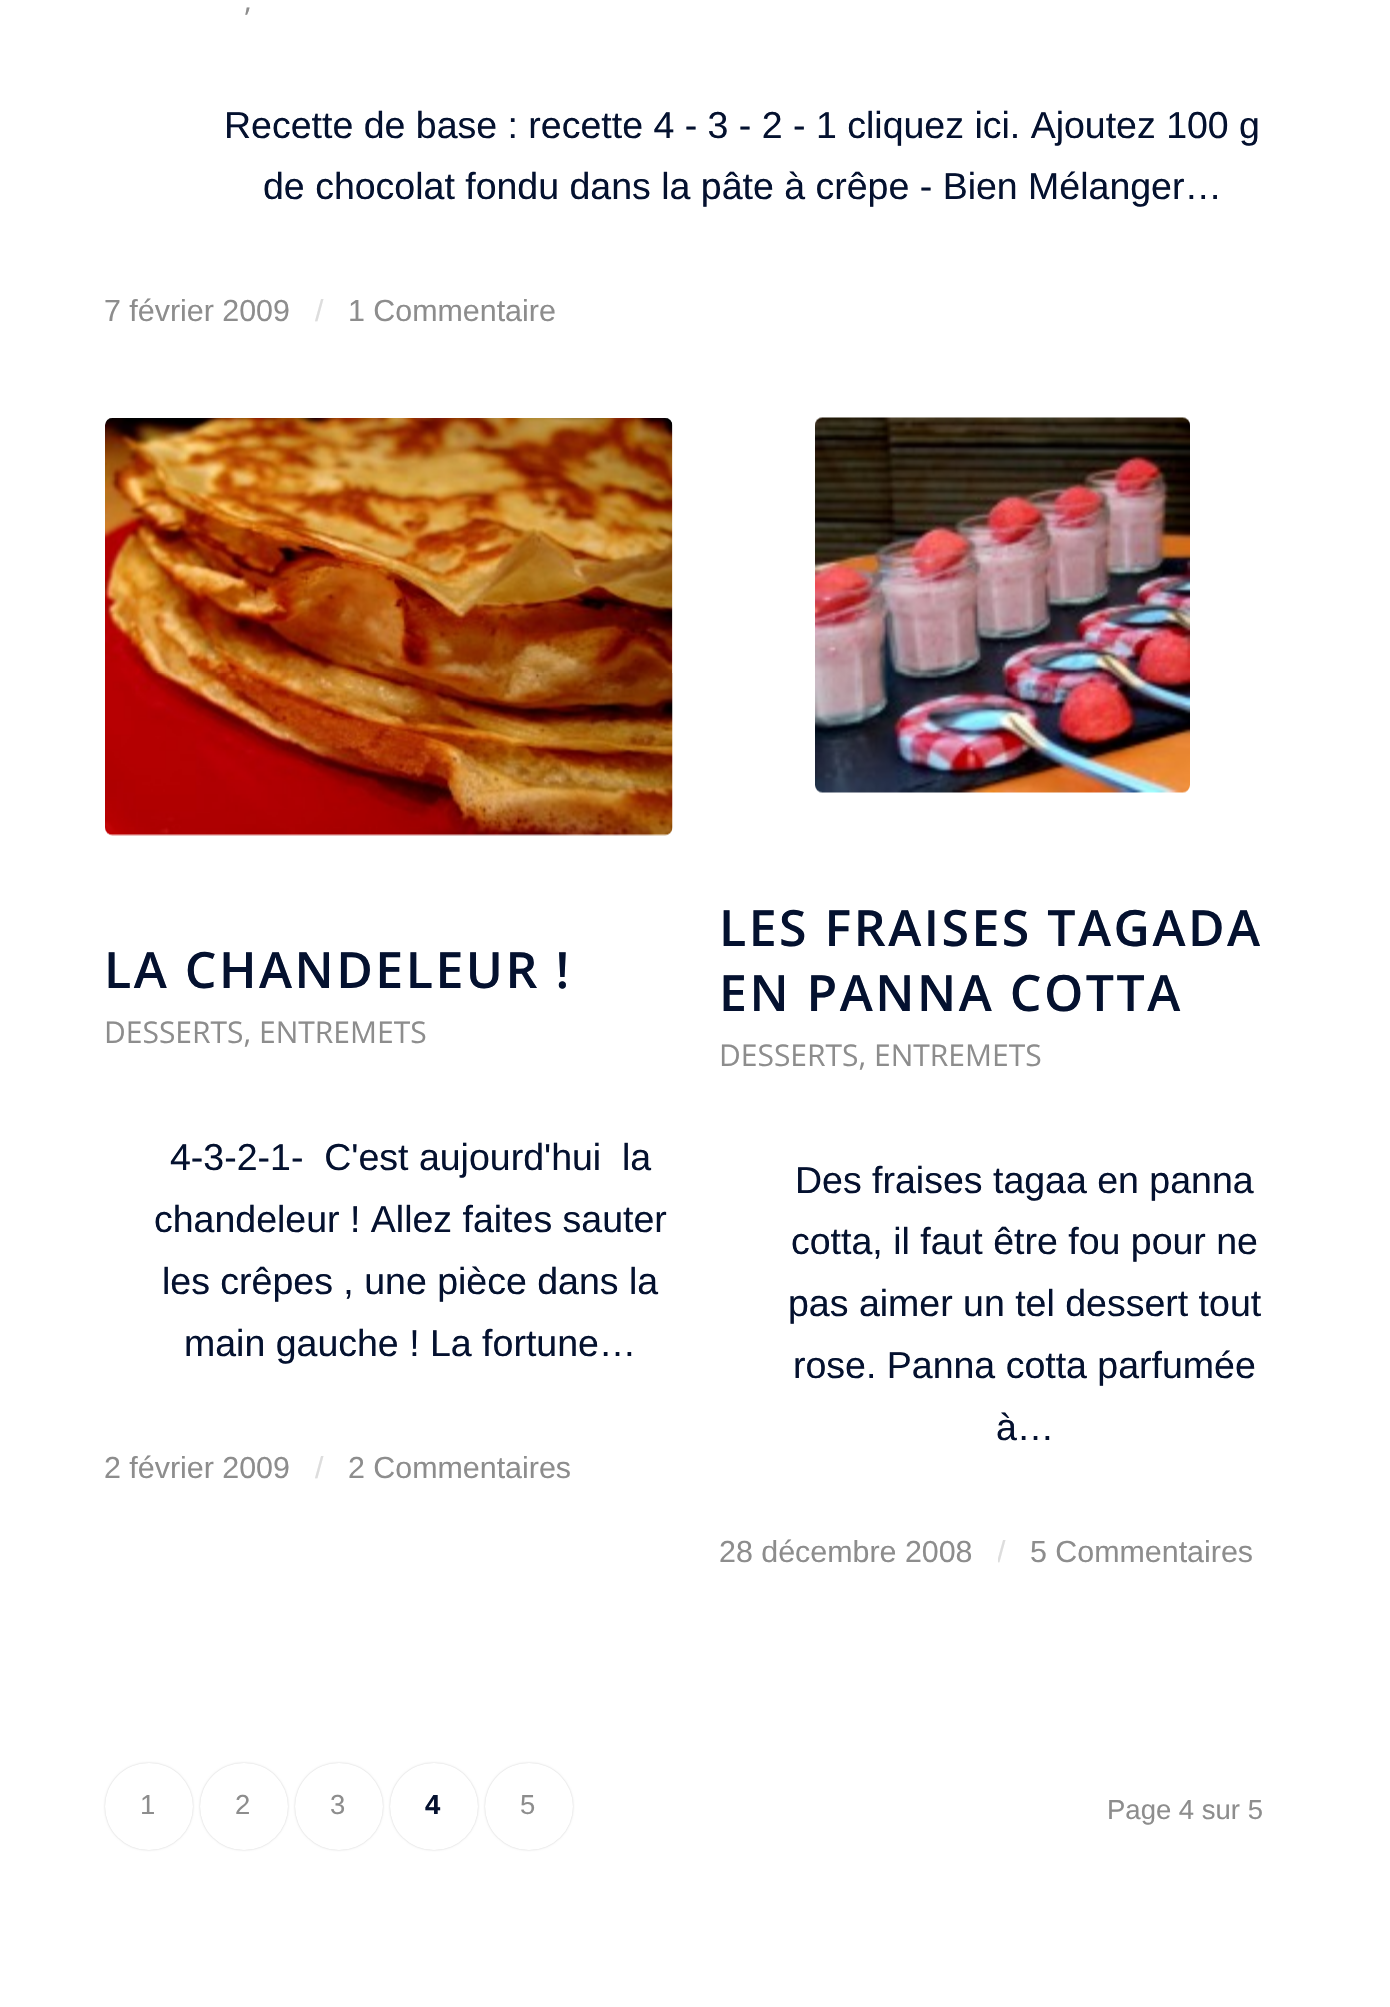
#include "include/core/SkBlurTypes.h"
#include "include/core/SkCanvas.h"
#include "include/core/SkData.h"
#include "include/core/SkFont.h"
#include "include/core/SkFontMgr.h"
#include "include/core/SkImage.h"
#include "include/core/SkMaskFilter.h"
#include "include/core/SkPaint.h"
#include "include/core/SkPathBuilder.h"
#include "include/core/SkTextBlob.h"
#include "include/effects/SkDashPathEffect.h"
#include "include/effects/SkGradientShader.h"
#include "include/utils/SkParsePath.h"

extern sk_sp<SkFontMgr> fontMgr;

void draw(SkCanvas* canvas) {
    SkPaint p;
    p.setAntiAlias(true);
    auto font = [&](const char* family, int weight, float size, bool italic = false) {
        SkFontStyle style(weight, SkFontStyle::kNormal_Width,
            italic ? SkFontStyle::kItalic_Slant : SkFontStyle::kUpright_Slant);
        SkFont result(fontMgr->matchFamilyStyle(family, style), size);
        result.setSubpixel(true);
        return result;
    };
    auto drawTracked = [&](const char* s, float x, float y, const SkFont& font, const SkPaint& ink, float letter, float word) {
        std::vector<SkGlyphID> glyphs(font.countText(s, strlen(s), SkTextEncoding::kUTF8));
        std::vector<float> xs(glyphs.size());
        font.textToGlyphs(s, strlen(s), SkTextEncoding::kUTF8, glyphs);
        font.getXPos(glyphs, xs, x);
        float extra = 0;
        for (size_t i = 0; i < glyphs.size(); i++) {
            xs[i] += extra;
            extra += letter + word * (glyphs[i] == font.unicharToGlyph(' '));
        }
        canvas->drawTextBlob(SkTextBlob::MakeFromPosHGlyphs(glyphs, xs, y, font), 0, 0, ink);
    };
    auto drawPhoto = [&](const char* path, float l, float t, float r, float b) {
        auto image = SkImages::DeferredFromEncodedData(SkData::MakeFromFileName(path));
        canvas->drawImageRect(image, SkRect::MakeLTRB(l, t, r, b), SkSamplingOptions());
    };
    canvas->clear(0xFFFFFFFF);
    auto font1 = font("Open Sans", 400, 30);
    p.setColor(0xFF8D8D8D);
    canvas->drawString(",", 244, 11, font1, p);
    auto font2 = font("Liberation Sans", 400, 37.5f);
    p.setColor(0xFF04112F);
    canvas->drawString("Recette de base : recette 4 - 3 - 2 - 1 cliquez ici. Ajoutez 100 g", 224, 138, font2, p);
    canvas->drawString("de chocolat fondu dans la pâte à crêpe - Bien Mélanger…", 263, 199, font2, p);
    auto font3 = font("Liberation Sans", 400, 30.4f);
    p.setColor(0xFF8D8D8D);
    canvas->drawString("7 février 2009", 104, 321, font3, p);
    p.setColor(0xFFDDDDDD);
    canvas->drawString("/", 315, 321, font3, p);
    p.setColor(0xFF8D8D8D);
    canvas->drawString("1 Commentaire", 348, 321, font3, p);
    drawPhoto("media/1.png", 105, 418, 673, 836);
    auto font4 = font("Open Sans", 600, 50);
    p.setColor(0xFF04112F);
    drawTracked("LA CHANDELEUR !", 104, 988, font4, p, 2.5f, 0);
    p.setColor(0xFF8D8D8D);
    canvas->drawString("DESSERTS, ENTREMETS", 104, 1043, font1, p);
    p.setColor(0xFF04112F);
    {
        const struct { const char* s; float x, y; } items[] = {
            {"4-3-2-1-  C'est aujourd'hui  la", 170, 1170},
            {"chandeleur ! Allez faites sauter", 154, 1232},
            {"les crêpes , une pièce dans la", 162, 1294},
            {"main gauche ! La fortune…", 184, 1356},
        };
        for (auto [s, x, y] : items) {
            canvas->drawString(s, x, y, font2, p);
        }
    }
    p.setColor(0xFF8D8D8D);
    canvas->drawString("2 février 2009", 104, 1478, font3, p);
    p.setColor(0xFFDDDDDD);
    canvas->drawString("/", 315, 1478, font3, p);
    p.setColor(0xFF8D8D8D);
    canvas->drawString("2 Commentaires", 348, 1478, font3, p);
    drawPhoto("media/2.png", 815, 417, 1190, 793);
    p.setColor(0xFF04112F);
    drawTracked("LES FRAISES TAGADA", 719, 946, font4, p, 2.5f, 0);
    drawTracked("EN PANNA COTTA", 719, 1011, font4, p, 2.5f, 0);
    p.setColor(0xFF8D8D8D);
    canvas->drawString("DESSERTS, ENTREMETS", 719, 1066, font1, p);
    p.setColor(0xFF04112F);
    {
        const struct { const char* s; float x, y; } items[] = {
            {"Des fraises tagaa en panna", 795, 1193},
            {"cotta, il faut être fou pour ne", 791, 1254},
            {"pas aimer un tel dessert tout", 788, 1316},
            {"rose. Panna cotta parfumée", 793, 1378},
            {"à…", 996, 1440},
        };
        for (auto [s, x, y] : items) {
            canvas->drawString(s, x, y, font2, p);
        }
    }
    p.setColor(0xFF8D8D8D);
    canvas->drawString("28 décembre 2008", 719, 1562, font3, p);
    canvas->save();
    canvas->clipRect(SkRect::MakeLTRB(998, 1523, 1006, 1585));
    p.setColor(0xFFDDDDDD);
    canvas->drawString("/", 997, 1562, font3, p);
    canvas->restore();
    p.setColor(0xFF8D8D8D);
    canvas->drawString("5 Commentaires", 1030, 1562, font3, p);
    p.setColor(0x33000000);
    p.setMaskFilter(SkMaskFilter::MakeBlur(kNormal_SkBlurStyle, 1));
    canvas->drawRoundRect(SkRect::MakeLTRB(105, 1763, 193, 1850), 43.5f, 43.5f, p);
    p.setMaskFilter(nullptr);
    p.setColor(0xFFFFFFFF);
    canvas->drawRoundRect(SkRect::MakeLTRB(105, 1763, 193, 1850), 43.5f, 43.5f, p);
    auto font5 = font("Liberation Sans", 400, 27.5f);
    p.setColor(0xFF8D8D8D);
    canvas->drawString("1", 140, 1814, font5, p);
    p.setColor(0x33000000);
    p.setMaskFilter(SkMaskFilter::MakeBlur(kNormal_SkBlurStyle, 1));
    canvas->drawRoundRect(SkRect::MakeLTRB(200, 1763, 288, 1850), 43.5f, 43.5f, p);
    p.setMaskFilter(nullptr);
    p.setColor(0xFFFFFFFF);
    canvas->drawRoundRect(SkRect::MakeLTRB(200, 1763, 288, 1850), 43.5f, 43.5f, p);
    p.setColor(0xFF8D8D8D);
    canvas->drawString("2", 235, 1814, font5, p);
    p.setColor(0x33000000);
    p.setMaskFilter(SkMaskFilter::MakeBlur(kNormal_SkBlurStyle, 1));
    canvas->drawRoundRect(SkRect::MakeLTRB(295, 1763, 383, 1850), 43.5f, 43.5f, p);
    p.setMaskFilter(nullptr);
    p.setColor(0xFFFFFFFF);
    canvas->drawRoundRect(SkRect::MakeLTRB(295, 1763, 383, 1850), 43.5f, 43.5f, p);
    p.setColor(0xFF8D8D8D);
    canvas->drawString("3", 330, 1814, font5, p);
    p.setColor(0x33000000);
    p.setMaskFilter(SkMaskFilter::MakeBlur(kNormal_SkBlurStyle, 1));
    canvas->drawRoundRect(SkRect::MakeLTRB(390, 1763, 478, 1850), 43.5f, 43.5f, p);
    p.setMaskFilter(nullptr);
    p.setColor(0xFFFFFFFF);
    canvas->drawRoundRect(SkRect::MakeLTRB(390, 1763, 478, 1850), 43.5f, 43.5f, p);
    auto font6 = font("Liberation Sans", 700, 27.5f);
    p.setColor(0xFF04112F);
    canvas->drawString("4", 425, 1814, font6, p);
    p.setColor(0x33000000);
    p.setMaskFilter(SkMaskFilter::MakeBlur(kNormal_SkBlurStyle, 1));
    canvas->drawRoundRect(SkRect::MakeLTRB(485, 1763, 573, 1850), 43.5f, 43.5f, p);
    p.setMaskFilter(nullptr);
    p.setColor(0xFFFFFFFF);
    canvas->drawRoundRect(SkRect::MakeLTRB(485, 1763, 573, 1850), 43.5f, 43.5f, p);
    p.setColor(0xFF8D8D8D);
    canvas->drawString("5", 520, 1814, font5, p);
    canvas->drawString("Page 4 sur 5", 1107, 1819, font5, p);
}
